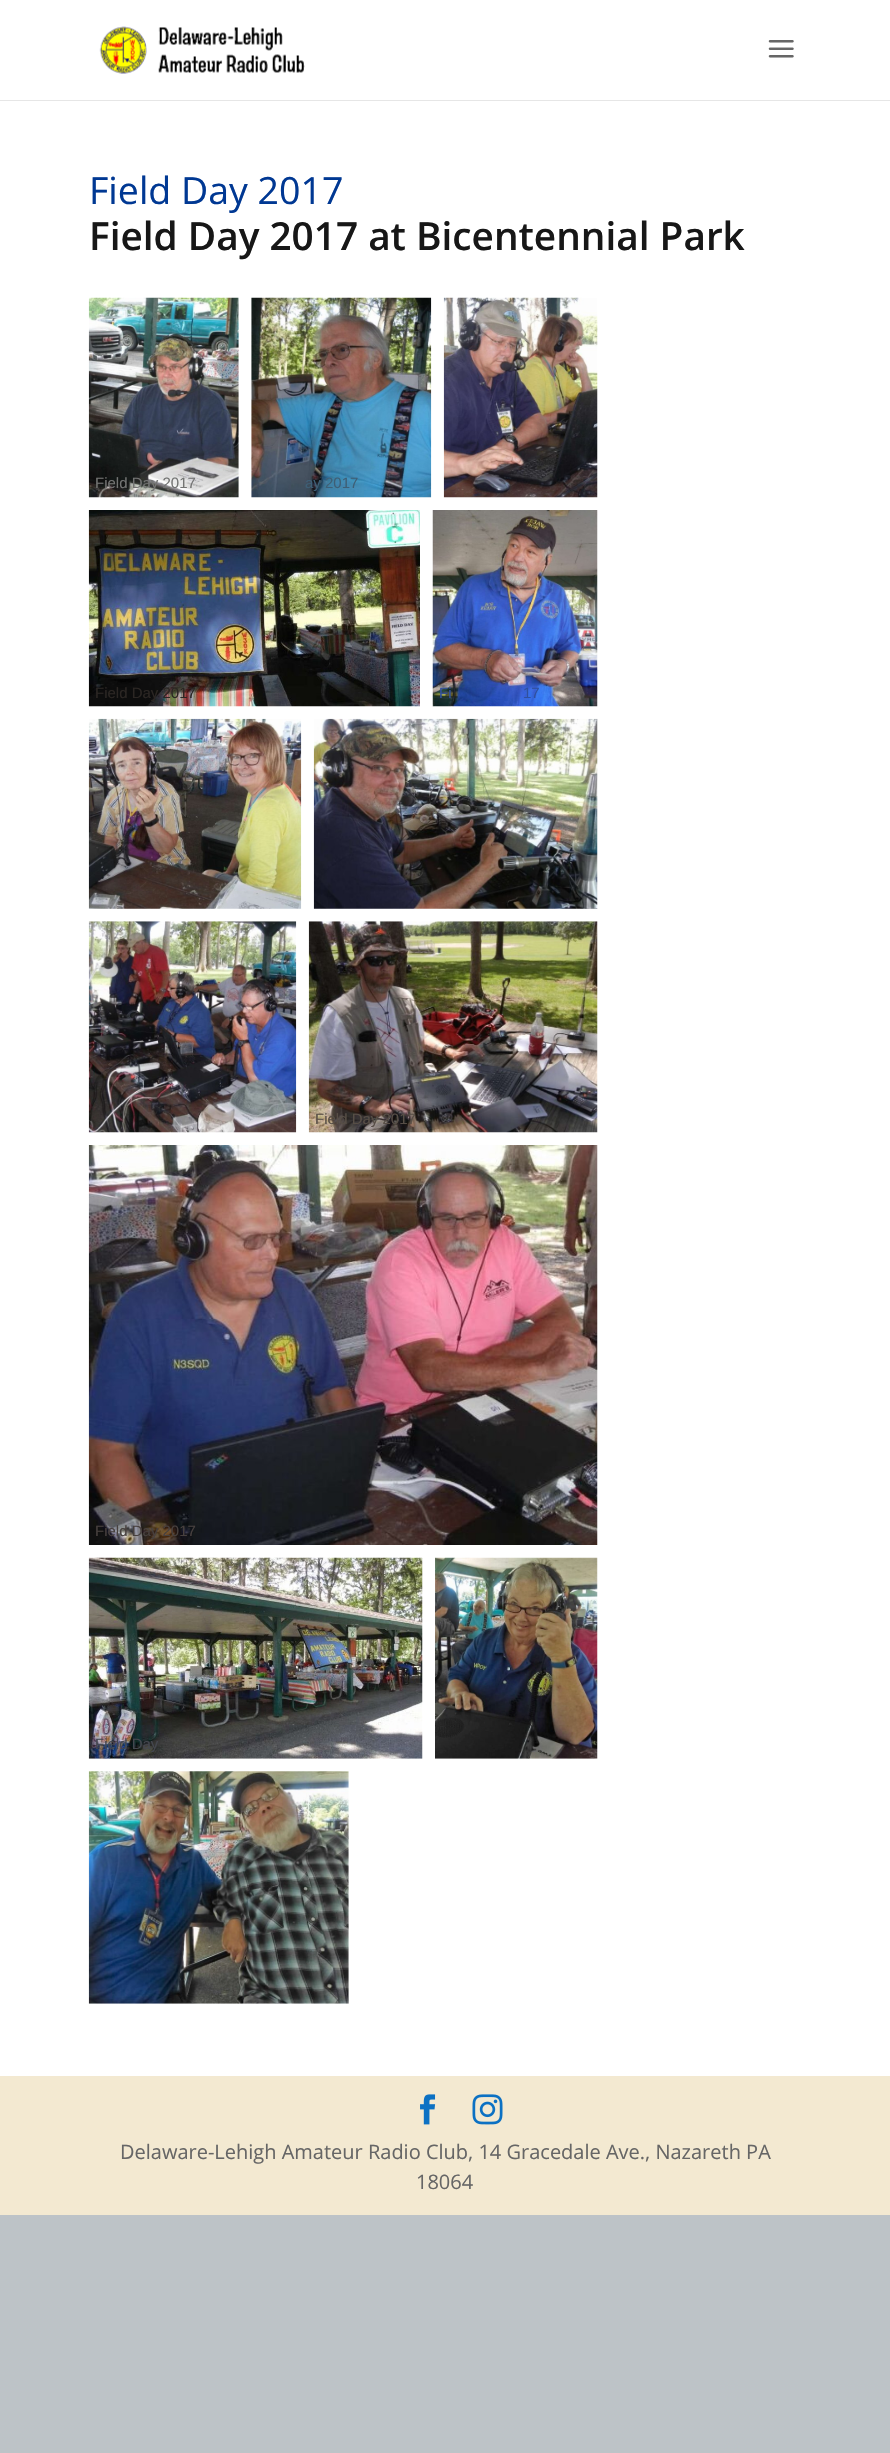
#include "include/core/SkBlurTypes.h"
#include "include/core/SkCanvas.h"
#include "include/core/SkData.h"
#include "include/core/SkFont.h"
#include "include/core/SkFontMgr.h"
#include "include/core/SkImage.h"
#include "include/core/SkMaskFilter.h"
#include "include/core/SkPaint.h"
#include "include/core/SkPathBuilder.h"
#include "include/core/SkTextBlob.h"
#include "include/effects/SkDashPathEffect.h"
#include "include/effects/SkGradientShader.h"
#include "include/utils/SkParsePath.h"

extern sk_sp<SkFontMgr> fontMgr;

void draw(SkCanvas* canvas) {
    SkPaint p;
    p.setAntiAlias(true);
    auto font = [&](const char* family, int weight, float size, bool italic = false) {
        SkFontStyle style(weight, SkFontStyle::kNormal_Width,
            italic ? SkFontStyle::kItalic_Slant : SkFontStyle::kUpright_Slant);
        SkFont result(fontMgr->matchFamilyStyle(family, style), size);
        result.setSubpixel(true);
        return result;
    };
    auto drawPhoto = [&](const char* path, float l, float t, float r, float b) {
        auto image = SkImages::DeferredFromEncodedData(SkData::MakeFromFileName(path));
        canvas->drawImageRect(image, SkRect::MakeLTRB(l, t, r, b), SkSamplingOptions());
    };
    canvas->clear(0xFFBDC3C7);
    p.setColor(0xFFE6E6E6);
    canvas->drawRect(SkRect::MakeLTRB(0, 100, 890, 101), p);
    p.setColor(0xFFFFFFFF);
    canvas->drawRect(SkRect::MakeLTRB(0, 0, 890, 100), p);
    drawPhoto("media/1.png", 99, 26, 305, 74);
    drawPhoto("media/2.png", 768, 40, 794, 58);
    canvas->drawRect(SkRect::MakeLTRB(0, 101, 890, 2076), p);
    auto font1 = font("Open Sans", 400, 37.5f);
    p.setColor(0xFF003893);
    canvas->drawString("Field Day 2017", 89, 204, font1, p);
    auto font2 = font("Open Sans", 600, 38.75f);
    p.setColor(0xFF171717);
    canvas->drawString("Field Day 2017 at Bicentennial Park", 89, 250, font2, p);
    drawPhoto("media/3.png", 88, 297, 239, 498);
    auto font3 = font("Liberation Sans", 400, 15);
    p.setColor(0xFF737473);
    canvas->drawString("Field Day 2017", 95, 488, font3, p);
    drawPhoto("media/4.png", 251, 297, 432, 498);
    p.setColor(0xFF3E5F76);
    canvas->drawString("ay 2017", 305, 488, font3, p);
    drawPhoto("media/5.png", 443, 297, 598, 498);
    drawPhoto("media/6.png", 88, 510, 420, 707);
    p.setColor(0xFF2B2623);
    canvas->drawString("Field Day 2017", 95, 698, font3, p);
    drawPhoto("media/7.png", 432, 510, 598, 707);
    p.setColor(0xFF30509E);
    canvas->drawString("Fi", 439, 698, font3, p);
    canvas->drawString("17", 523, 698, font3, p);
    drawPhoto("media/8.png", 88, 718, 302, 909);
    drawPhoto("media/9.png", 313, 718, 598, 909);
    drawPhoto("media/10.png", 88, 921, 297, 1133);
    drawPhoto("media/11.png", 308, 921, 598, 1133);
    p.setColor(0xFF574E46);
    canvas->drawString("Field Day 2017", 315, 1124, font3, p);
    drawPhoto("media/12.png", 88, 1145, 598, 1545);
    p.setColor(0xFF47403E);
    canvas->drawString("Field Day 2017", 95, 1536, font3, p);
    drawPhoto("media/13.png", 88, 1557, 423, 1759);
    p.setColor(0xFF44474F);
    canvas->drawString("Field Day", 95, 1749, font3, p);
    drawPhoto("media/14.png", 435, 1557, 598, 1759);
    drawPhoto("media/15.png", 88, 1771, 349, 2004);
    p.setColor(0xFFF3E9D1);
    canvas->drawRect(SkRect::MakeLTRB(0, 2076, 890, 2215), p);
    drawPhoto("media/16.png", 420, 2094, 436, 2125);
    drawPhoto("media/17.png", 472, 2094, 503, 2125);
    auto font4 = font("Open Sans", 400, 20);
    p.setColor(0xFF666666);
    canvas->drawString("Delaware-Lehigh Amateur Radio Club, 14 Gracedale Ave., Nazareth PA", 120, 2159, font4, p);
    canvas->drawString("18064", 416, 2189, font4, p);
}
